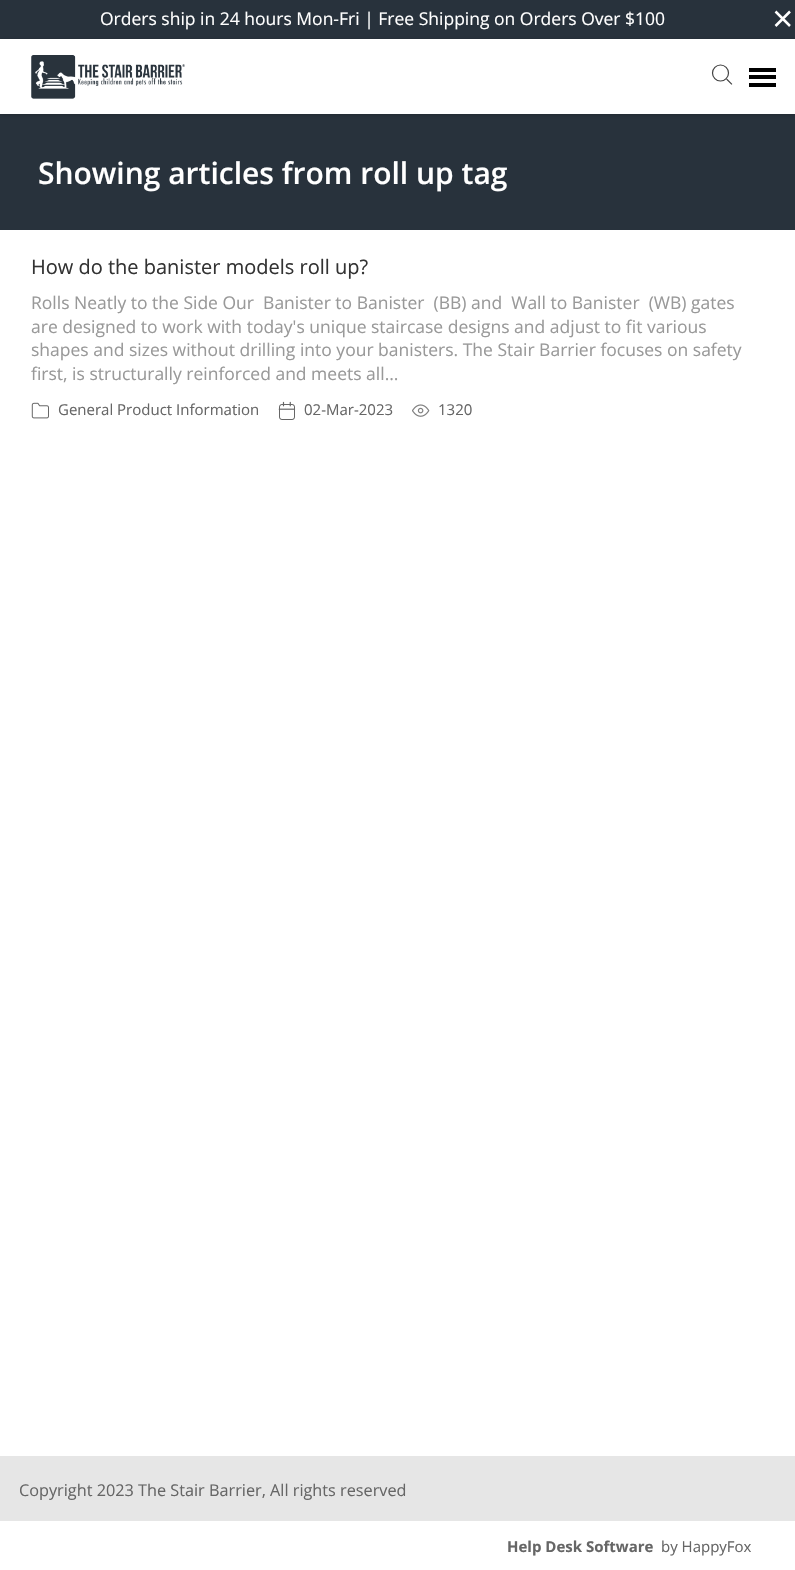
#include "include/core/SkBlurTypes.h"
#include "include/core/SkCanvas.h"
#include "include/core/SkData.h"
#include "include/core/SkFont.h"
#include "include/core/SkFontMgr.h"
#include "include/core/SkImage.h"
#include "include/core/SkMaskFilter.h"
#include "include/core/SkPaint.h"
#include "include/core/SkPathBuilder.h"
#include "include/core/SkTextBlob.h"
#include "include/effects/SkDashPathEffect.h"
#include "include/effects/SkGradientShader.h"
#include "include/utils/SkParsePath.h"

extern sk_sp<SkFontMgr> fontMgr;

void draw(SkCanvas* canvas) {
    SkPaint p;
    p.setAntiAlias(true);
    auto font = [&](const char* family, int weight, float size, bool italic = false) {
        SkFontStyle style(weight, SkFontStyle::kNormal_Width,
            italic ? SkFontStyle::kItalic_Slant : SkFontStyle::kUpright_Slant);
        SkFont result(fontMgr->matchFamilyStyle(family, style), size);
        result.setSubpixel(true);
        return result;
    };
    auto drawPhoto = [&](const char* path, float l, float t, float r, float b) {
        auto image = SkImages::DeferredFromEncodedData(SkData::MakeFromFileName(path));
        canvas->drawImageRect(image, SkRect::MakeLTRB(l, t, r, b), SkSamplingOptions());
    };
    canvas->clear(0xFFFFFFFF);
    p.setColor(0xFF28323C);
    canvas->drawRect(SkRect::MakeLTRB(0, 0, 795, 39), p);
    auto font1 = font("Open Sans", 400, 17.5f);
    p.setColor(0xFFFFFFFF);
    canvas->drawString("Orders ship in 24 hours Mon-Fri | Free Shipping on Orders Over $100", 100, 25, font1, p);
    p.setStyle(SkPaint::kStroke_Style);
    p.setStrokeWidth(2.5f);
    canvas->drawPath(SkPathBuilder().moveTo(790, 11.5f).lineTo(775.5f, 26).moveTo(790, 26).lineTo(775.5f, 11.5f).detach(), p);
    p.setStyle(SkPaint::kFill_Style);
    p.setColor(0xFF28323C);
    canvas->drawRect(SkRect::MakeLTRB(0, 114, 795, 230), p);
    p.setColor(0x33000000);
    p.setMaskFilter(SkMaskFilter::MakeBlur(kNormal_SkBlurStyle, 2));
    canvas->drawRect(SkRect::MakeLTRB(0, 40, 795, 115), p);
    p.setMaskFilter(nullptr);
    p.setColor(0xFFFFFFFF);
    canvas->drawRect(SkRect::MakeLTRB(0, 39, 795, 114), p);
    drawPhoto("media/1.png", 31, 55, 185, 99);
    p.setStyle(SkPaint::kStroke_Style);
    p.setStrokeWidth(1.2f);
    p.setColor(0xFF424242);
    canvas->drawCircle(720.5f, 73, 8, p);
    p.setStrokeCap(SkPaint::kSquare_Cap);
    canvas->drawPath(SkPathBuilder().moveTo(727, 79.5f).lineTo(731.5f, 84).detach(), p);
    p.setStyle(SkPaint::kFill_Style);
    {
        const struct { float l, t, r, b; SkColor color; } items[] = {
            {749, 68, 776, 72, 0xFF000000},
            {749, 75, 776, 79, 0xFF000000},
            {749, 83, 776, 87, 0xFF000000},
        };
        for (auto [l, t, r, b, color] : items) {
            p.setColor(color);
            canvas->drawRect(SkRect::MakeLTRB(l, t, r, b), p);
        }
    }
    auto font2 = font("Open Sans", 600, 30);
    p.setColor(0xFFFFFFFF);
    canvas->drawString("Showing articles from roll up tag", 38, 184, font2, p);
    auto font3 = font("Open Sans", 400, 20);
    p.setColor(0xFF333333);
    canvas->drawString("How do the banister models roll up?", 31, 274, font3, p);
    p.setColor(0xFF999999);
    {
        const struct { const char* s; float x, y; } items[] = {
            {"Rolls Neatly to the Side Our  Banister to Banister  (BB) and  Wall to Banister  (WB) gates", 31, 309},
            {"are designed to work with today's unique staircase designs and adjust to fit various", 31, 333},
            {"shapes and sizes without drilling into your banisters. The Stair Barrier focuses on safety", 31, 356},
            {"first, is structurally reinforced and meets all…", 31, 380},
        };
        for (auto [s, x, y] : items) {
            canvas->drawString(s, x, y, font1, p);
        }
    }
    drawPhoto("media/2.png", 31, 402, 49, 419);
    auto font4 = font("Open Sans", 400, 15);
    p.setColor(0xFF666666);
    canvas->drawString("General Product Information", 58, 415, font4, p);
    drawPhoto("media/3.png", 278, 401, 296, 420);
    canvas->drawString("02-Mar-2023", 304, 415, font4, p);
    drawPhoto("media/4.png", 412, 404, 430, 417);
    canvas->drawString("1320", 438, 415, font4, p);
    p.setColor(0xFFE6E6E6);
    canvas->drawRect(SkRect::MakeLTRB(0, 1456, 795, 1521), p);
    auto font5 = font("Open Sans", 400, 16.25f);
    p.setColor(0xFF666666);
    canvas->drawString("Copyright 2023 The Stair Barrier, All rights reserved", 19, 1496, font5, p);
    auto font6 = font("Open Sans", 700, 15);
    canvas->drawString("Help Desk Software", 507, 1552, font6, p);
    canvas->drawString("by HappyFox", 661, 1552, font4, p);
}
